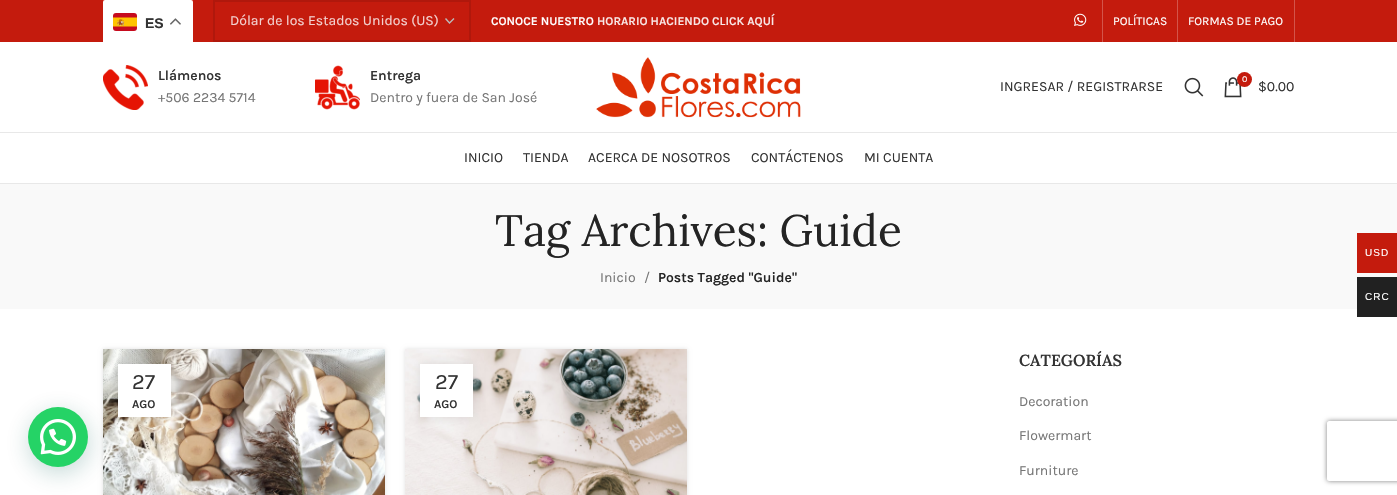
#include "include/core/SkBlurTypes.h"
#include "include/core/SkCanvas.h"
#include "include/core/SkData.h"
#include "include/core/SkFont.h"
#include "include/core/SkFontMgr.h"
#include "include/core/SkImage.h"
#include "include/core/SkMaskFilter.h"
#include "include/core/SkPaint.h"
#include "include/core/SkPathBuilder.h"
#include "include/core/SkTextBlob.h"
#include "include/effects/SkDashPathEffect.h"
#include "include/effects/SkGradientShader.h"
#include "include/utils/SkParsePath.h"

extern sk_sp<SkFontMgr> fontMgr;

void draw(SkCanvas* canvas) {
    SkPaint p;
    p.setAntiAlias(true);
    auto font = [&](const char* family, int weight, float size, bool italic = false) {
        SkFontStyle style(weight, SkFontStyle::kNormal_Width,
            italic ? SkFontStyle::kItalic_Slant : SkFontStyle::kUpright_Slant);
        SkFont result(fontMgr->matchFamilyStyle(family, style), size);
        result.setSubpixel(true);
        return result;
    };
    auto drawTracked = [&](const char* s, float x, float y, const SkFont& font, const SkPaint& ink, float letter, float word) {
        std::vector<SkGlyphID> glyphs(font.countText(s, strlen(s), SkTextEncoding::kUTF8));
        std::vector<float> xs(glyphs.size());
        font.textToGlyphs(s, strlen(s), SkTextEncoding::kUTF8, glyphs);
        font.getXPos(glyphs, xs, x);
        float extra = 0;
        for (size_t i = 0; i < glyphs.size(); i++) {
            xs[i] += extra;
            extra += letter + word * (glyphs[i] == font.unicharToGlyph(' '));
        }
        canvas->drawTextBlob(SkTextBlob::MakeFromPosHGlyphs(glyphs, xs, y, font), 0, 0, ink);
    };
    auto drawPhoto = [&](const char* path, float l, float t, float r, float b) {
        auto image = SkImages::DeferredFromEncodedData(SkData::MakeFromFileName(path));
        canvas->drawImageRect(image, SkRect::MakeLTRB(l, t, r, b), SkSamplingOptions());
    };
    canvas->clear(0xFFFFFFFF);
    p.setColor(0xFFC41B0D);
    canvas->drawRect(SkRect::MakeLTRB(0, 0, 1397, 42), p);
    p.setColor(0xFFFFFFFF);
    canvas->drawRoundRect(SkRect::MakeLTRB(103, 0, 193, 44), 2, 2, p);
    drawPhoto("media/1.png", 113, 13, 137, 31);
    auto font1 = font("Liberation Sans", 700, 14);
    p.setColor(0xFF333333);
    canvas->drawString("ES", 145, 28, font1, p);
    drawPhoto("media/2.png", 170, 18, 181, 25);
    p.setStyle(SkPaint::kStroke_Style);
    p.setStrokeWidth(1.4f);
    p.setColor(0xFFBBBBBB);
    canvas->drawPath(SkPathBuilder().moveTo(445.5f, 18.5f).lineTo(449.5f, 23).lineTo(454, 18.5f).detach(), p);
    p.setStrokeWidth(2);
    p.setColor(0xFFB0180C);
    canvas->drawRect(SkRect::MakeLTRB(214, 1, 470, 41), p);
    auto font2 = font("Karla", 400, 14);
    p.setStyle(SkPaint::kFill_Style);
    p.setColor(0xFFF3D1CF);
    canvas->drawString("Dólar de los Estados Unidos (US)", 230, 25, font2, p);
    auto font3 = font("Karla", 600, 12);
    p.setColor(0xFFFFFFFF);
    canvas->drawString("CONOCE NUESTRO", 491, 25, font3, p);
    p.setColor(0xFFF9E8E7);
    canvas->drawString("HORARIO HACIENDO CLICK AQUÍ", 597, 25, font3, p);
    drawPhoto("media/3.png", 1074, 13, 1087, 26);
    p.setColor(0xFFD3544A);
    canvas->drawRect(SkRect::MakeLTRB(1102, 0, 1103, 42), p);
    auto font4 = font("Karla", 400, 12);
    p.setColor(0xFFFFFFFF);
    canvas->drawString("POLÍTICAS", 1113, 25, font4, p);
    p.setColor(0xFFD3544A);
    canvas->drawRect(SkRect::MakeLTRB(1177, 0, 1178, 42), p);
    p.setColor(0xFFFFFFFF);
    canvas->drawString("FORMAS DE PAGO", 1188, 25, font4, p);
    p.setColor(0xFFD3544A);
    canvas->drawRect(SkRect::MakeLTRB(1294, 0, 1295, 42), p);
    p.setColor(0xFFE8E8E8);
    canvas->drawRect(SkRect::MakeLTRB(0, 132, 1397, 133), p);
    drawPhoto("media/4.png", 103, 65, 148, 110);
    auto font5 = font("Karla", 600, 14);
    p.setColor(0xFF333333);
    canvas->drawString("Llámenos", 158, 80, font5, p);
    p.setColor(0xFF767676);
    canvas->drawString("+506 2234 5714", 158, 102, font2, p);
    drawPhoto("media/5.png", 315, 65, 360, 110);
    p.setColor(0xFF333333);
    canvas->drawString("Entrega", 370, 80, font5, p);
    p.setColor(0xFF767676);
    canvas->drawString("Dentro y fuera de San José", 370, 102, font2, p);
    drawPhoto("media/6.png", 596, 57, 801, 118);
    p.setColor(0xFF333333);
    canvas->drawString("INGRESAR / REGISTRARSE", 1000, 91, font2, p);
    drawPhoto("media/7.png", 1184, 77, 1204, 97);
    drawPhoto("media/8.png", 1224, 77, 1242, 98);
    p.setColor(0xFFC41B0D);
    canvas->drawCircle(1244.5f, 79.5f, 7.5f, p);
    auto font6 = font("Karla", 400, 9);
    p.setColor(0xFFFFFFFF);
    canvas->drawString("0", 1242, 82, font6, p);
    p.setColor(0xFF333333);
    canvas->drawString("$0.00", 1258, 91, font2, p);
    p.setColor(0xFFE8E8E8);
    canvas->drawRect(SkRect::MakeLTRB(0, 183, 1397, 184), p);
    p.setColor(0xFF333333);
    {
        const struct { const char* s; float x, y; } items[] = {
            {"INICIO", 464, 162},
            {"TIENDA", 523, 162},
            {"ACERCA DE NOSOTROS", 588, 162},
            {"CONTÁCTENOS", 751, 162},
            {"MI CUENTA", 864, 162},
        };
        for (auto [s, x, y] : items) {
            canvas->drawString(s, x, y, font2, p);
        }
    }
    p.setColor(0xFFF9F9F9);
    canvas->drawRect(SkRect::MakeLTRB(0, 184, 1397, 309), p);
    auto font7 = font("Lora", 400, 44);
    p.setColor(0xFF242424);
    canvas->drawString("Tag Archives: Guide", 495, 246, font7, p);
    p.setColor(0xFF767676);
    canvas->drawString("Inicio", 600, 282, font2, p);
    canvas->drawString("/", 644, 282, font2, p);
    p.setColor(0xFF242424);
    canvas->drawString("Posts Tagged \"Guide\"", 658, 282, font5, p);
    p.setColor(0x1F000000);
    p.setMaskFilter(SkMaskFilter::MakeBlur(kNormal_SkBlurStyle, 2));
    canvas->drawRect(SkRect::MakeLTRB(103, 349, 385, 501), p);
    p.setMaskFilter(nullptr);
    drawPhoto("media/9.png", 103, 349, 385, 495);
    p.setColor(0x1A000000);
    p.setMaskFilter(SkMaskFilter::MakeBlur(kNormal_SkBlurStyle, 4.5f));
    canvas->drawRect(SkRect::MakeLTRB(118, 364, 171, 417), p);
    p.setMaskFilter(nullptr);
    p.setColor(0xFFFFFFFF);
    canvas->drawRect(SkRect::MakeLTRB(118, 364, 171, 417), p);
    auto font8 = font("Karla", 400, 22);
    p.setColor(0xFF333333);
    canvas->drawString("27", 132, 389, font8, p);
    canvas->drawString("AGO", 132, 408, font3, p);
    p.setColor(0x1F000000);
    p.setMaskFilter(SkMaskFilter::MakeBlur(kNormal_SkBlurStyle, 2));
    canvas->drawRect(SkRect::MakeLTRB(405, 349, 687, 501), p);
    p.setMaskFilter(nullptr);
    drawPhoto("media/10.png", 405, 349, 687, 495);
    p.setColor(0x1A000000);
    p.setMaskFilter(SkMaskFilter::MakeBlur(kNormal_SkBlurStyle, 4.5f));
    canvas->drawRect(SkRect::MakeLTRB(420, 364, 473, 417), p);
    p.setMaskFilter(nullptr);
    p.setColor(0xFFFFFFFF);
    canvas->drawRect(SkRect::MakeLTRB(420, 364, 473, 417), p);
    p.setColor(0xFF333333);
    canvas->drawString("27", 435, 389, font8, p);
    canvas->drawString("AGO", 434, 408, font3, p);
    auto font9 = font("Lora", 600, 16);
    canvas->drawString("CATEGORÍAS", 1019, 366, font9, p);
    p.setColor(0xFF767676);
    {
        const struct { const char* s; float x, y; } items[] = {
            {"Decoration", 1019, 406},
            {"Flowermart", 1019, 440},
            {"Furniture", 1019, 475},
        };
        for (auto [s, x, y] : items) {
            canvas->drawString(s, x, y, font2, p);
        }
    }
    p.setColor(0xFFC41B0D);
    canvas->drawRect(SkRect::MakeLTRB(1357, 233, 1397, 273), p);
    auto font10 = font("Liberation Sans", 400, 10);
    p.setColor(0xFFFFFFFF);
    drawTracked("USD", 1365, 256, font10, p, 1, 0);
    p.setColor(0xFF212121);
    canvas->drawRect(SkRect::MakeLTRB(1357, 277, 1397, 317), p);
    p.setColor(0xFFFFFFFF);
    drawTracked("CRC", 1365, 300, font10, p, 1, 0);
    p.setColor(0x3D075E54);
    p.setMaskFilter(SkMaskFilter::MakeBlur(kNormal_SkBlurStyle, 12));
    canvas->drawRoundRect(SkRect::MakeLTRB(29, 413, 89, 473), 30, 30, p);
    p.setMaskFilter(nullptr);
    p.setColor(0xFF25D366);
    canvas->drawCircle(58, 437, 30, p);
    drawPhoto("media/11.png", 40, 419, 76, 455);
    canvas->save();
    canvas->clipPath(SkPathBuilder(SkPathFillType::kEvenOdd).moveTo(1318, 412).lineTo(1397, 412).lineTo(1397, 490).lineTo(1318, 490).close().moveTo(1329, 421).lineTo(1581, 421).cubicTo(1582, 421, 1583, 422, 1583, 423).lineTo(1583, 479).cubicTo(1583, 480, 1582, 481, 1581, 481).lineTo(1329, 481).cubicTo(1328, 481, 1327, 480, 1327, 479).lineTo(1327, 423).cubicTo(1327, 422, 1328, 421, 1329, 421).close().detach(), true);
    p.setColor(0xFF808080);
    p.setMaskFilter(SkMaskFilter::MakeBlur(kNormal_SkBlurStyle, 2.5f));
    canvas->drawRoundRect(SkRect::MakeLTRB(1327, 421, 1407, 481), 2, 2, p);
    p.setMaskFilter(nullptr);
    canvas->restore();
}
